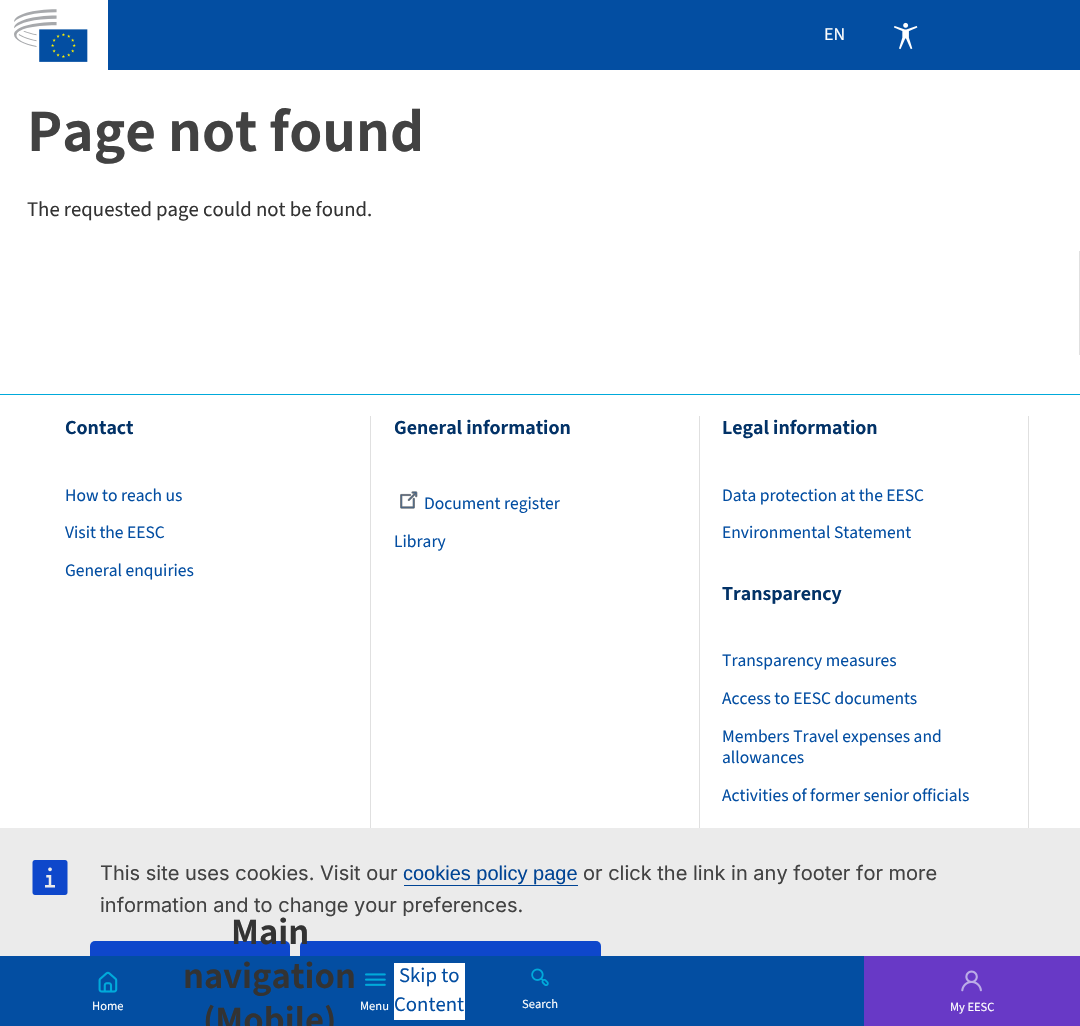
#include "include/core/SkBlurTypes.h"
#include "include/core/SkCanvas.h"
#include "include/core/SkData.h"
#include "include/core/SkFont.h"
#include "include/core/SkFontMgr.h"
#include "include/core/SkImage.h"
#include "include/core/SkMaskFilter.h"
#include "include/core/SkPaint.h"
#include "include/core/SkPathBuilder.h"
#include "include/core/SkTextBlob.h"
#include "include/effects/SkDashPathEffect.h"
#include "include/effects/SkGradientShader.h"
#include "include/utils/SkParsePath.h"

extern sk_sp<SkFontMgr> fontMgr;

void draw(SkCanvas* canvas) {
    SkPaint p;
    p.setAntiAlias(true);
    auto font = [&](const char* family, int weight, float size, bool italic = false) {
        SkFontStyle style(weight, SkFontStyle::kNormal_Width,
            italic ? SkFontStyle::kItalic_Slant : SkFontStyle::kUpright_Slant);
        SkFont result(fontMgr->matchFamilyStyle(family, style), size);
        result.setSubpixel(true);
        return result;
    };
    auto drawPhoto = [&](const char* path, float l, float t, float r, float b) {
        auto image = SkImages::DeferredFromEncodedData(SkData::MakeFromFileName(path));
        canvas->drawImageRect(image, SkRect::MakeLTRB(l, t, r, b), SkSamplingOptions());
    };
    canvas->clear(0xFFFFFFFF);
    drawPhoto("media/1.png", 14, 9, 88, 62);
    p.setColor(0xFF034EA2);
    canvas->drawRect(SkRect::MakeLTRB(108, 0, 1080, 70), p);
    p.setColor(0xFFEBEBEB);
    canvas->drawRect(SkRect::MakeLTRB(0, 828, 1080, 956), p);
    p.setColor(0xFF0E47CB);
    canvas->drawRoundRect(SkRect::MakeLTRB(90, 941, 290, 996), 5, 5, p);
    canvas->drawRoundRect(SkRect::MakeLTRB(300, 941, 601, 996), 5, 5, p);
    p.setColor(0xFF034EA2);
    canvas->drawRect(SkRect::MakeLTRB(0, 956, 864, 1026), p);
    auto font1 = font("Source Sans 3", 400, 18);
    p.setColor(0xFFFEFEFE);
    canvas->drawString("EN", 824, 40, font1, p);
    drawPhoto("media/2.png", 894, 22, 918, 50);
    drawPhoto("media/3.png", 98, 971, 118, 993);
    auto font2 = font("Source Sans 3", 400, 12.5f);
    canvas->drawString("Home", 92, 1010, font2, p);
    auto font3 = font("Source Sans 3", 600, 37);
    p.setColor(0xFF333333);
    {
        const struct { const char* s; float x, y; } items[] = {
            {"Main", 231, 944},
            {"navigation", 183, 988},
            {"(Mobile)", 203, 1032},
        };
        for (auto [s, x, y] : items) {
            canvas->drawString(s, x, y, font3, p);
        }
    }
    drawPhoto("media/4.png", 365, 973, 386, 986);
    p.setColor(0xFFFEFEFE);
    canvas->drawString("Menu", 360, 1010, font2, p);
    p.setColor(0xFFFFFFFF);
    canvas->drawRect(SkRect::MakeLTRB(394, 963, 465, 1020), p);
    auto font4 = font("Source Sans 3", 400, 20.75f);
    p.setColor(0xFF034EA2);
    canvas->drawString("Skip to", 399, 982, font4, p);
    canvas->drawString("Content", 394, 1011, font4, p);
    drawPhoto("media/5.png", 531, 968, 549, 986);
    p.setColor(0xFFFEFEFE);
    canvas->drawString("Search", 522, 1008, font2, p);
    p.setColor(0xFF6839C6);
    canvas->drawRect(SkRect::MakeLTRB(864, 956, 1080, 1026), p);
    drawPhoto("media/6.png", 961, 970, 982, 992);
    p.setColor(0xFFFEFEFE);
    canvas->drawString("My EESC", 950, 1011, font2, p);
    auto font5 = font("Source Sans 3", 600, 60);
    p.setColor(0xFF424242);
    canvas->drawString("Page not found", 27, 151, font5, p);
    p.setColor(0xFF333333);
    canvas->drawString("The requested page could not be found.", 27, 216, font4, p);
    {
        const struct { float l, t, r, b; SkColor color; } items[] = {
            {1079, 251, 1080, 355, 0xFFE0E0E0},
            {0, 394, 1080, 395, 0xFF00AADB},
            {370, 416, 371, 828, 0xFFE0E0E0},
        };
        for (auto [l, t, r, b, color] : items) {
            p.setColor(color);
            canvas->drawRect(SkRect::MakeLTRB(l, t, r, b), p);
        }
    }
    auto font6 = font("Source Sans 3", 600, 20);
    p.setColor(0xFF023267);
    canvas->drawString("Contact", 65, 434, font6, p);
    auto font7 = font("Source Sans 3", 400, 17.5f);
    p.setColor(0xFF034EA2);
    {
        const struct { const char* s; float x, y; } items[] = {
            {"How to reach us", 65, 501},
            {"Visit the EESC", 65, 538},
            {"General enquiries", 65, 576},
        };
        for (auto [s, x, y] : items) {
            canvas->drawString(s, x, y, font7, p);
        }
    }
    p.setColor(0xFFE0E0E0);
    canvas->drawRect(SkRect::MakeLTRB(699, 416, 700, 828), p);
    p.setColor(0xFF023267);
    canvas->drawString("General information", 394, 434, font6, p);
    drawPhoto("media/7.png", 400, 491, 418, 509);
    p.setColor(0xFF034EA2);
    canvas->drawString("Document register", 424, 509, font7, p);
    canvas->drawString("Library", 394, 547, font7, p);
    p.setColor(0xFFE0E0E0);
    canvas->drawRect(SkRect::MakeLTRB(1028, 416, 1029, 828), p);
    p.setColor(0xFF023267);
    canvas->drawString("Legal information", 722, 434, font6, p);
    p.setColor(0xFF034EA2);
    canvas->drawString("Data protection at the EESC", 722, 501, font7, p);
    canvas->drawString("Environmental Statement", 722, 538, font7, p);
    p.setColor(0xFF023267);
    canvas->drawString("Transparency", 722, 600, font6, p);
    p.setColor(0xFF034EA2);
    {
        const struct { const char* s; float x, y; } items[] = {
            {"Transparency measures", 722, 666},
            {"Access to EESC documents", 722, 704},
            {"Members Travel expenses and", 722, 742},
            {"allowances", 722, 763},
            {"Activities of former senior officials", 722, 801},
        };
        for (auto [s, x, y] : items) {
            canvas->drawString(s, x, y, font7, p);
        }
    }
    drawPhoto("media/8.png", 32, 860, 68, 895);
    auto font8 = font("Inter", 400, 20);
    p.setColor(0xFF424242);
    canvas->drawString("This site uses cookies. Visit our", 100, 880, font8, p);
    auto font9 = font("Liberation Sans", 400, 20);
    p.setColor(0xFF004494);
    canvas->drawString("cookies policy page", 403, 880, font9, p);
    canvas->drawRect(SkRect::MakeLTRB(404, 885, 578, 886), p);
    p.setColor(0xFF424242);
    canvas->drawString("or click the link in any footer for more", 583, 880, font8, p);
    canvas->drawString("information and to change your preferences.", 100, 912, font8, p);
}
